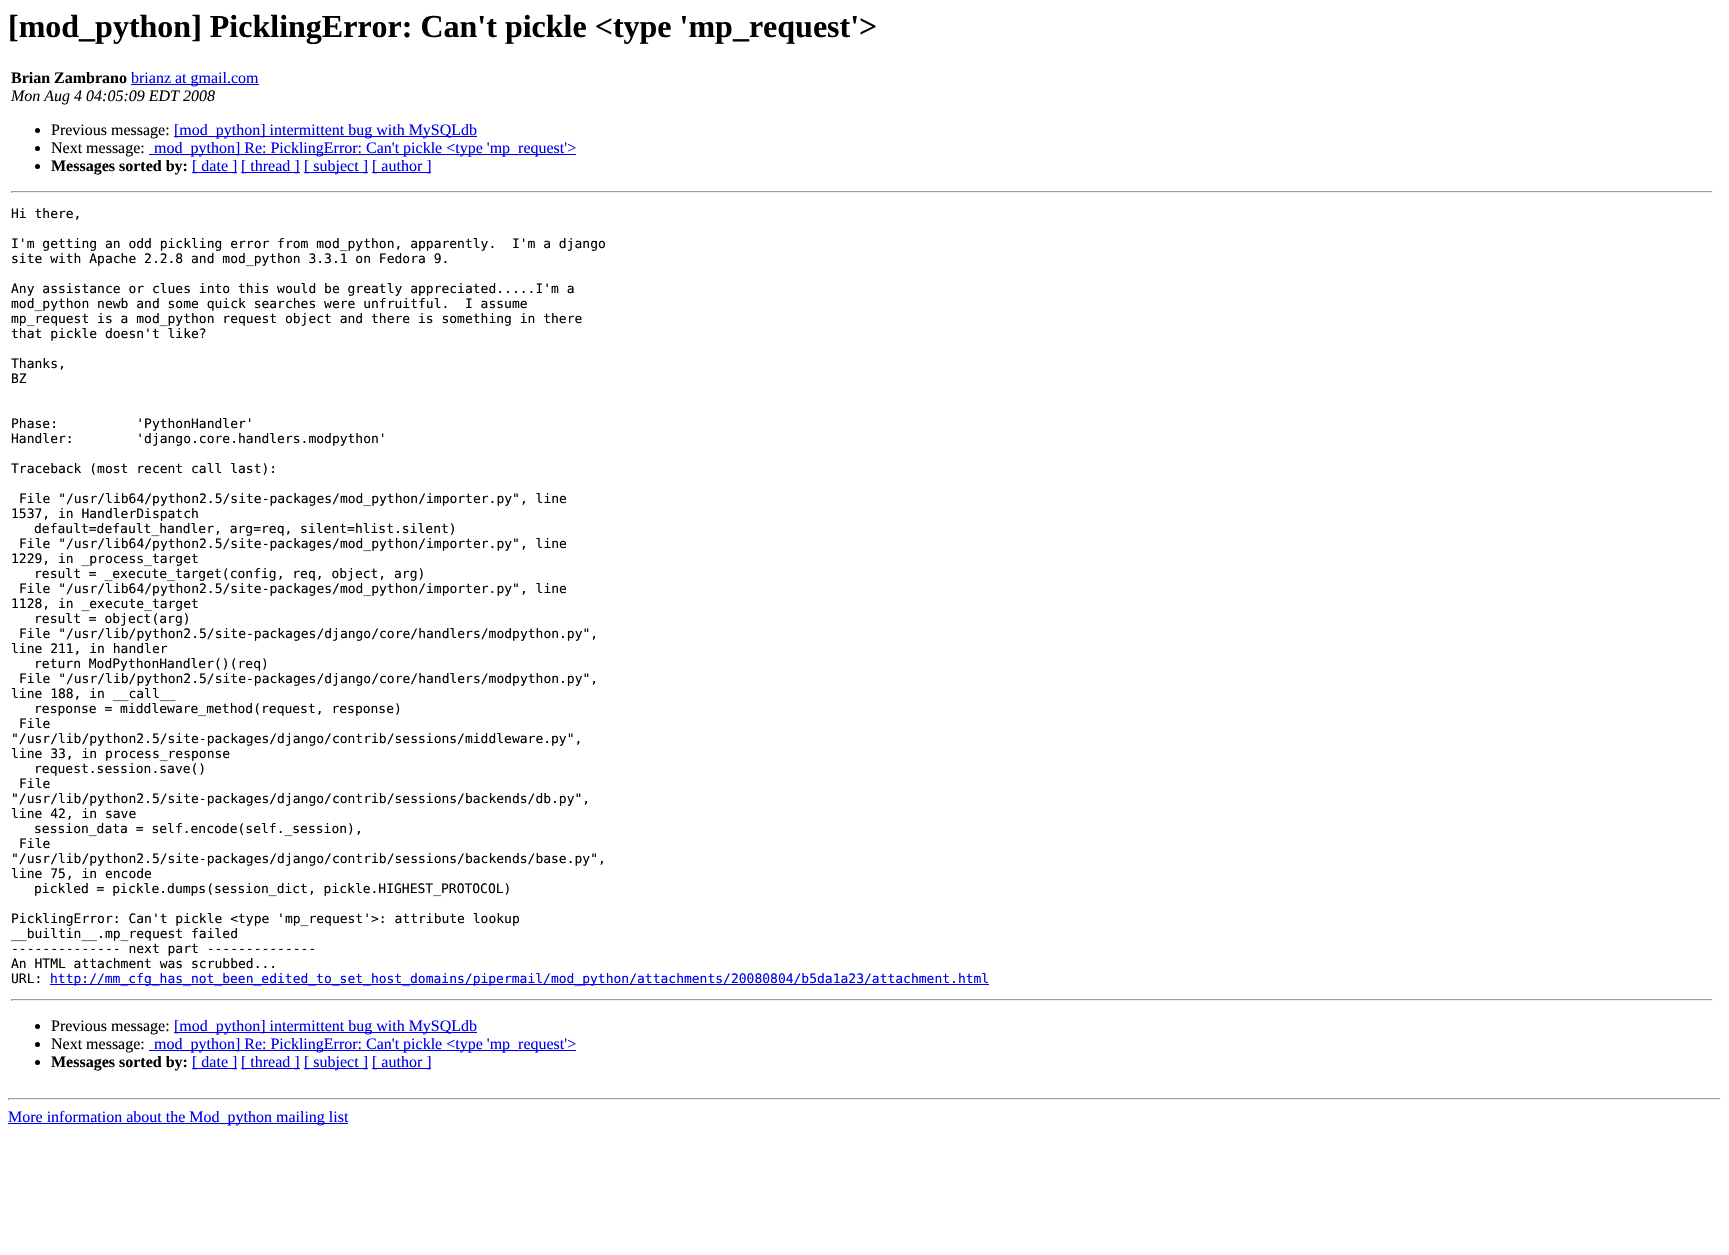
#include "include/core/SkBlurTypes.h"
#include "include/core/SkCanvas.h"
#include "include/core/SkData.h"
#include "include/core/SkFont.h"
#include "include/core/SkFontMgr.h"
#include "include/core/SkImage.h"
#include "include/core/SkMaskFilter.h"
#include "include/core/SkPaint.h"
#include "include/core/SkPathBuilder.h"
#include "include/core/SkTextBlob.h"
#include "include/effects/SkDashPathEffect.h"
#include "include/effects/SkGradientShader.h"
#include "include/utils/SkParsePath.h"

extern sk_sp<SkFontMgr> fontMgr;

void draw(SkCanvas* canvas) {
    SkPaint p;
    p.setAntiAlias(true);
    auto font = [&](const char* family, int weight, float size, bool italic = false) {
        SkFontStyle style(weight, SkFontStyle::kNormal_Width,
            italic ? SkFontStyle::kItalic_Slant : SkFontStyle::kUpright_Slant);
        SkFont result(fontMgr->matchFamilyStyle(family, style), size);
        result.setSubpixel(true);
        return result;
    };
    canvas->clear(0xFFFFFFFF);
    auto font1 = font("Liberation Serif", 700, 32);
    p.setColor(0xFF000000);
    canvas->drawString("[mod_python] PicklingError: Can't pickle <type 'mp_request'>", 8, 37, font1, p);
    auto font2 = font("Liberation Serif", 700, 16);
    canvas->drawString("Brian Zambrano", 11, 83, font2, p);
    p.setColor(0xFF0000EE);
    canvas->drawRect(SkRect::MakeLTRB(131, 84, 259, 85), p);
    auto font3 = font("Liberation Serif", 400, 16);
    canvas->drawString("brianz at gmail.com", 131, 83, font3, p);
    auto font4 = font("Liberation Serif", 400, 16, true);
    p.setColor(0xFF000000);
    canvas->drawString("Mon Aug 4 04:05:09 EDT 2008", 11, 101, font4, p);
    canvas->drawCircle(37.5f, 130.5f, 2.5f, p);
    canvas->drawString("Previous message:", 51, 135, font3, p);
    p.setColor(0xFF0000EE);
    canvas->drawRect(SkRect::MakeLTRB(174, 136, 477, 137), p);
    canvas->drawString("[mod_python] intermittent bug with MySQLdb", 174, 135, font3, p);
    p.setColor(0xFF000000);
    canvas->drawCircle(37.5f, 148.5f, 2.5f, p);
    canvas->drawString("Next message:", 51, 153, font3, p);
    p.setColor(0xFF0000EE);
    canvas->drawRect(SkRect::MakeLTRB(149, 154, 576, 155), p);
    canvas->drawString("mod_python] Re: PicklingError: Can't pickle <type 'mp_request'>", 154, 153, font3, p);
    p.setColor(0xFF000000);
    canvas->drawCircle(37.5f, 166.5f, 2.5f, p);
    canvas->drawString("Messages sorted by:", 51, 171, font2, p);
    p.setColor(0xFF0000EE);
    canvas->drawRect(SkRect::MakeLTRB(192, 172, 237, 173), p);
    canvas->drawString("[ date ]", 192, 171, font3, p);
    canvas->drawRect(SkRect::MakeLTRB(241, 172, 300, 173), p);
    canvas->drawString("[ thread ]", 241, 171, font3, p);
    canvas->drawRect(SkRect::MakeLTRB(304, 172, 368, 173), p);
    canvas->drawString("[ subject ]", 304, 171, font3, p);
    canvas->drawRect(SkRect::MakeLTRB(372, 172, 431, 173), p);
    canvas->drawString("[ author ]", 372, 171, font3, p);
    {
        const struct { float l, t, r, b; SkColor color; } items[] = {
            {11, 191, 1713, 192, 0xFF9F9F9F},
            {1712, 191, 1713, 193, 0xFFEEEEEE},
            {11, 192, 1713, 193, 0xFFEEEEEE},
            {11, 191, 12, 193, 0xFF9F9F9F},
        };
        for (auto [l, t, r, b, color] : items) {
            p.setColor(color);
            canvas->drawRect(SkRect::MakeLTRB(l, t, r, b), p);
        }
    }
    auto font5 = font("DejaVu Sans Mono", 400, 13);
    p.setColor(0xFF000000);
    {
        const struct { const char* s; float x, y; } items[] = {
            {"Hi there,", 11, 218},
            {"I'm getting an odd pickling error from mod_python, apparently.  I'm a django", 11, 248},
            {"site with Apache 2.2.8 and mod_python 3.3.1 on Fedora 9.", 11, 263},
            {"Any assistance or clues into this would be greatly appreciated.....I'm a", 11, 293},
            {"mod_python newb and some quick searches were unfruitful.  I assume", 11, 308},
            {"mp_request is a mod_python request object and there is something in there", 11, 323},
            {"that pickle doesn't like?", 11, 338},
            {"Thanks,", 11, 368},
            {"BZ", 11, 383},
            {"Phase:          'PythonHandler'", 11, 428},
            {"Handler:        'django.core.handlers.modpython'", 11, 443},
            {"Traceback (most recent call last):", 11, 473},
            {"File \"/usr/lib64/python2.5/site-packages/mod_python/importer.py\", line", 19, 503},
            {"1537, in HandlerDispatch", 11, 518},
            {"default=default_handler, arg=req, silent=hlist.silent)", 34, 533},
            {"File \"/usr/lib64/python2.5/site-packages/mod_python/importer.py\", line", 19, 548},
            {"1229, in _process_target", 11, 563},
            {"result = _execute_target(config, req, object, arg)", 34, 578},
            {"File \"/usr/lib64/python2.5/site-packages/mod_python/importer.py\", line", 19, 593},
            {"1128, in _execute_target", 11, 608},
            {"result = object(arg)", 34, 623},
            {"File \"/usr/lib/python2.5/site-packages/django/core/handlers/modpython.py\",", 19, 638},
            {"line 211, in handler", 11, 653},
            {"return ModPythonHandler()(req)", 34, 668},
            {"File \"/usr/lib/python2.5/site-packages/django/core/handlers/modpython.py\",", 19, 683},
            {"line 188, in __call__", 11, 698},
            {"response = middleware_method(request, response)", 34, 713},
            {"File", 19, 728},
            {"\"/usr/lib/python2.5/site-packages/django/contrib/sessions/middleware.py\",", 11, 743},
            {"line 33, in process_response", 11, 758},
            {"request.session.save()", 34, 773},
            {"File", 19, 788},
            {"\"/usr/lib/python2.5/site-packages/django/contrib/sessions/backends/db.py\",", 11, 803},
            {"line 42, in save", 11, 818},
            {"session_data = self.encode(self._session),", 34, 833},
            {"File", 19, 848},
            {"\"/usr/lib/python2.5/site-packages/django/contrib/sessions/backends/base.py\",", 11, 863},
            {"line 75, in encode", 11, 878},
            {"pickled = pickle.dumps(session_dict, pickle.HIGHEST_PROTOCOL)", 34, 893},
            {"PicklingError: Can't pickle <type 'mp_request'>: attribute lookup", 11, 923},
            {"__builtin__.mp_request failed", 11, 938},
            {"-------------- next part --------------", 11, 953},
            {"An HTML attachment was scrubbed...", 11, 968},
            {"URL:", 11, 983},
        };
        for (auto [s, x, y] : items) {
            canvas->drawString(s, x, y, font5, p);
        }
    }
    p.setColor(0xFF0000EE);
    canvas->drawRect(SkRect::MakeLTRB(50, 984, 989, 985), p);
    canvas->drawString("http://mm_cfg_has_not_been_edited_to_set_host_domains/pipermail/mod_python/attachments/20080804/b5da1a23/attachment.html", 50, 983, font5, p);
    {
        const struct { float l, t, r, b; SkColor color; } items[] = {
            {11, 999, 1713, 1000, 0xFF9F9F9F},
            {1712, 999, 1713, 1001, 0xFFEEEEEE},
            {11, 1000, 1713, 1001, 0xFFEEEEEE},
            {11, 999, 12, 1001, 0xFF9F9F9F},
        };
        for (auto [l, t, r, b, color] : items) {
            p.setColor(color);
            canvas->drawRect(SkRect::MakeLTRB(l, t, r, b), p);
        }
    }
    p.setColor(0xFF000000);
    canvas->drawCircle(37.5f, 1026.5f, 2.5f, p);
    canvas->drawString("Previous message:", 51, 1031, font3, p);
    p.setColor(0xFF0000EE);
    canvas->drawRect(SkRect::MakeLTRB(174, 1032, 477, 1033), p);
    canvas->drawString("[mod_python] intermittent bug with MySQLdb", 174, 1031, font3, p);
    p.setColor(0xFF000000);
    canvas->drawCircle(37.5f, 1044.5f, 2.5f, p);
    canvas->drawString("Next message:", 51, 1049, font3, p);
    p.setColor(0xFF0000EE);
    canvas->drawRect(SkRect::MakeLTRB(149, 1050, 576, 1051), p);
    canvas->drawString("mod_python] Re: PicklingError: Can't pickle <type 'mp_request'>", 154, 1049, font3, p);
    p.setColor(0xFF000000);
    canvas->drawCircle(37.5f, 1062.5f, 2.5f, p);
    canvas->drawString("Messages sorted by:", 51, 1067, font2, p);
    p.setColor(0xFF0000EE);
    canvas->drawRect(SkRect::MakeLTRB(192, 1068, 237, 1069), p);
    canvas->drawString("[ date ]", 192, 1067, font3, p);
    canvas->drawRect(SkRect::MakeLTRB(241, 1068, 300, 1069), p);
    canvas->drawString("[ thread ]", 241, 1067, font3, p);
    canvas->drawRect(SkRect::MakeLTRB(304, 1068, 368, 1069), p);
    canvas->drawString("[ subject ]", 304, 1067, font3, p);
    canvas->drawRect(SkRect::MakeLTRB(372, 1068, 431, 1069), p);
    canvas->drawString("[ author ]", 372, 1067, font3, p);
    {
        const struct { float l, t, r, b; SkColor color; } items[] = {
            {8, 1098, 1721, 1099, 0xFF9F9F9F},
            {1720, 1098, 1721, 1100, 0xFFEEEEEE},
            {8, 1099, 1721, 1100, 0xFFEEEEEE},
            {8, 1098, 9, 1100, 0xFF9F9F9F},
            {8, 1123, 348, 1124, 0xFF0000EE},
        };
        for (auto [l, t, r, b, color] : items) {
            p.setColor(color);
            canvas->drawRect(SkRect::MakeLTRB(l, t, r, b), p);
        }
    }
    canvas->drawString("More information about the Mod_python mailing list", 8, 1122, font3, p);
}
